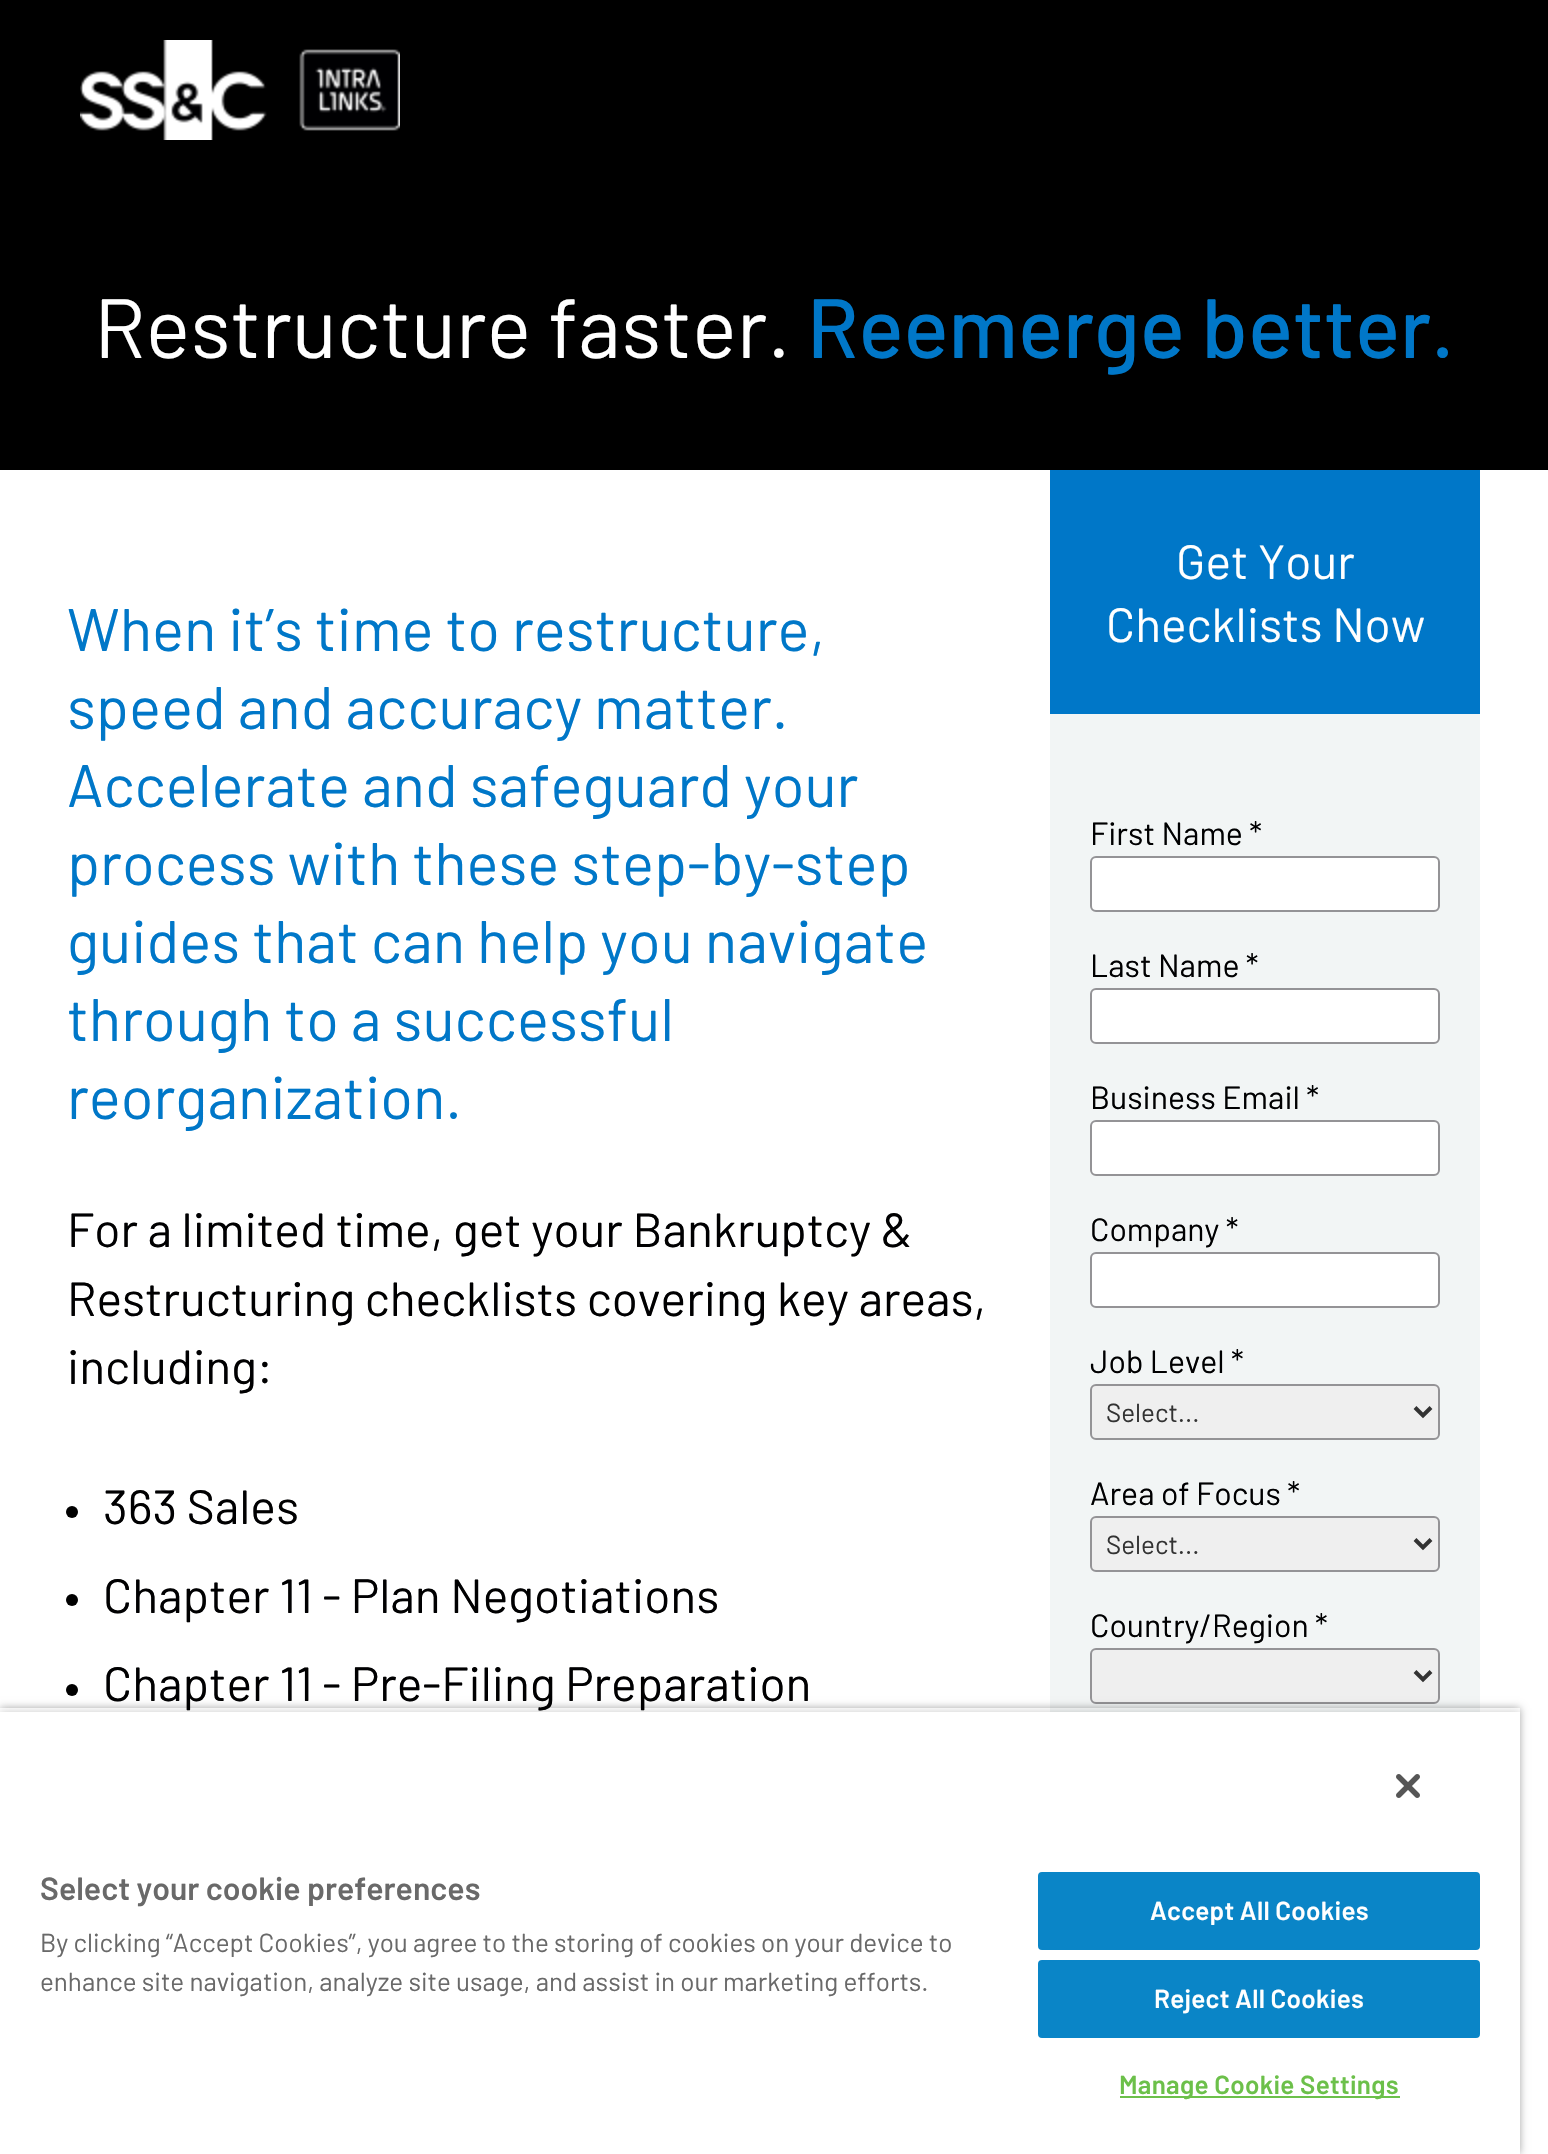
#include "include/core/SkBlurTypes.h"
#include "include/core/SkCanvas.h"
#include "include/core/SkData.h"
#include "include/core/SkFont.h"
#include "include/core/SkFontMgr.h"
#include "include/core/SkImage.h"
#include "include/core/SkMaskFilter.h"
#include "include/core/SkPaint.h"
#include "include/core/SkPathBuilder.h"
#include "include/core/SkTextBlob.h"
#include "include/effects/SkDashPathEffect.h"
#include "include/effects/SkGradientShader.h"
#include "include/utils/SkParsePath.h"

extern sk_sp<SkFontMgr> fontMgr;

void draw(SkCanvas* canvas) {
    SkPaint p;
    p.setAntiAlias(true);
    auto font = [&](const char* family, int weight, float size, bool italic = false) {
        SkFontStyle style(weight, SkFontStyle::kNormal_Width,
            italic ? SkFontStyle::kItalic_Slant : SkFontStyle::kUpright_Slant);
        SkFont result(fontMgr->matchFamilyStyle(family, style), size);
        result.setSubpixel(true);
        return result;
    };
    auto drawTracked = [&](const char* s, float x, float y, const SkFont& font, const SkPaint& ink, float letter, float word) {
        std::vector<SkGlyphID> glyphs(font.countText(s, strlen(s), SkTextEncoding::kUTF8));
        std::vector<float> xs(glyphs.size());
        font.textToGlyphs(s, strlen(s), SkTextEncoding::kUTF8, glyphs);
        font.getXPos(glyphs, xs, x);
        float extra = 0;
        for (size_t i = 0; i < glyphs.size(); i++) {
            xs[i] += extra;
            extra += letter + word * (glyphs[i] == font.unicharToGlyph(' '));
        }
        canvas->drawTextBlob(SkTextBlob::MakeFromPosHGlyphs(glyphs, xs, y, font), 0, 0, ink);
    };
    auto drawPhoto = [&](const char* path, float l, float t, float r, float b) {
        auto image = SkImages::DeferredFromEncodedData(SkData::MakeFromFileName(path));
        canvas->drawImageRect(image, SkRect::MakeLTRB(l, t, r, b), SkSamplingOptions());
    };
    canvas->clear(0xFFFFFFFF);
    p.setColor(0xFF000000);
    canvas->drawRect(SkRect::MakeLTRB(0, 0, 1548, 470), p);
    drawPhoto("media/1.png", 80, 40, 400, 140);
    auto font1 = font("Barlow", 400, 84);
    p.setColor(0xFFFFFFFF);
    canvas->drawString("Restructure faster.", 94, 358, font1, p);
    auto font2 = font("Barlow", 500, 84);
    p.setColor(0xFF0077C8);
    canvas->drawString("Reemerge better.", 807, 358, font2, p);
    auto font3 = font("Barlow", 400, 60);
    {
        const struct { const char* s; float x, y; } items[] = {
            {"When it’s time to restructure,", 67, 651},
            {"speed and accuracy matter.", 67, 729},
            {"Accelerate and safeguard your", 67, 807},
            {"process with these step-by-step", 67, 885},
            {"guides that can help you navigate", 67, 963},
            {"through to a successful", 67, 1041},
            {"reorganization.", 67, 1119},
        };
        for (auto [s, x, y] : items) {
            canvas->drawString(s, x, y, font3, p);
        }
    }
    auto font4 = font("Barlow", 400, 48);
    p.setColor(0xFF000001);
    {
        const struct { const char* s; float x, y; } items[] = {
            {"For a limited time, get your Bankruptcy &", 67, 1247},
            {"Restructuring checklists covering key areas,", 67, 1316},
            {"including:", 67, 1384},
        };
        for (auto [s, x, y] : items) {
            canvas->drawString(s, x, y, font4, p);
        }
    }
    p.setColor(0xFF000000);
    canvas->drawCircle(72, 1512, 6, p);
    p.setColor(0xFF000001);
    canvas->drawString("363 Sales", 103, 1524, font4, p);
    p.setColor(0xFF000000);
    canvas->drawCircle(72, 1600, 6, p);
    p.setColor(0xFF000001);
    canvas->drawString("Chapter 11 - Plan Negotiations", 103, 1613, font4, p);
    p.setColor(0xFF000000);
    canvas->drawCircle(72, 1690, 6, p);
    p.setColor(0xFF000001);
    canvas->drawString("Chapter 11 - Pre-Filing Preparation", 103, 1701, font4, p);
    p.setColor(0xFFF2F5F5);
    canvas->drawRect(SkRect::MakeLTRB(1050, 714, 1480, 1712), p);
    p.setColor(0xFF0077C8);
    canvas->drawRect(SkRect::MakeLTRB(1050, 470, 1480, 714), p);
    p.setColor(0xFFFFFFFF);
    canvas->drawString("Get Your", 1176, 579, font4, p);
    canvas->drawString("Checklists Now", 1106, 642, font4, p);
    auto font5 = font("Barlow", 400, 32);
    p.setColor(0xFF000001);
    canvas->drawString("First Name *", 1090, 845, font5, p);
    p.setColor(0xFFFFFFFF);
    canvas->drawRoundRect(SkRect::MakeLTRB(1091, 857, 1439, 911), 5, 5, p);
    p.setStyle(SkPaint::kStroke_Style);
    p.setStrokeWidth(2);
    p.setColor(0xFF949396);
    canvas->drawRoundRect(SkRect::MakeLTRB(1091, 857, 1439, 911), 5, 5, p);
    p.setStyle(SkPaint::kFill_Style);
    p.setColor(0xFF000001);
    canvas->drawString("Last Name *", 1090, 977, font5, p);
    p.setColor(0xFFFFFFFF);
    canvas->drawRoundRect(SkRect::MakeLTRB(1091, 989, 1439, 1043), 5, 5, p);
    p.setStyle(SkPaint::kStroke_Style);
    p.setColor(0xFF949396);
    canvas->drawRoundRect(SkRect::MakeLTRB(1091, 989, 1439, 1043), 5, 5, p);
    p.setStyle(SkPaint::kFill_Style);
    p.setColor(0xFF000001);
    canvas->drawString("Business Email *", 1090, 1109, font5, p);
    p.setColor(0xFFFFFFFF);
    canvas->drawRoundRect(SkRect::MakeLTRB(1091, 1121, 1439, 1175), 5, 5, p);
    p.setStyle(SkPaint::kStroke_Style);
    p.setColor(0xFF949396);
    canvas->drawRoundRect(SkRect::MakeLTRB(1091, 1121, 1439, 1175), 5, 5, p);
    p.setStyle(SkPaint::kFill_Style);
    p.setColor(0xFF000001);
    canvas->drawString("Company *", 1090, 1241, font5, p);
    p.setColor(0xFFFFFFFF);
    canvas->drawRoundRect(SkRect::MakeLTRB(1091, 1253, 1439, 1307), 5, 5, p);
    p.setStyle(SkPaint::kStroke_Style);
    p.setColor(0xFF949396);
    canvas->drawRoundRect(SkRect::MakeLTRB(1091, 1253, 1439, 1307), 5, 5, p);
    p.setStyle(SkPaint::kFill_Style);
    p.setColor(0xFF000001);
    canvas->drawString("Job Level *", 1090, 1373, font5, p);
    p.setColor(0xFFEFEFEF);
    canvas->drawRoundRect(SkRect::MakeLTRB(1091, 1385, 1439, 1439), 5, 5, p);
    p.setStyle(SkPaint::kStroke_Style);
    p.setColor(0xFF949396);
    canvas->drawRoundRect(SkRect::MakeLTRB(1091, 1385, 1439, 1439), 5, 5, p);
    p.setStrokeWidth(4);
    p.setColor(0xFF333333);
    canvas->drawPath(SkPathBuilder().moveTo(1415, 1407.5f).lineTo(1423, 1415.5f).lineTo(1431, 1407.5f).detach(), p);
    auto font6 = font("Barlow", 400, 26);
    p.setStyle(SkPaint::kFill_Style);
    canvas->drawString("Select...", 1106, 1422, font6, p);
    p.setColor(0xFF000001);
    canvas->drawString("Area of Focus *", 1090, 1505, font5, p);
    p.setColor(0xFFEFEFEF);
    canvas->drawRoundRect(SkRect::MakeLTRB(1091, 1517, 1439, 1571), 5, 5, p);
    p.setStyle(SkPaint::kStroke_Style);
    p.setStrokeWidth(2);
    p.setColor(0xFF949396);
    canvas->drawRoundRect(SkRect::MakeLTRB(1091, 1517, 1439, 1571), 5, 5, p);
    p.setStrokeWidth(4);
    p.setColor(0xFF333333);
    canvas->drawPath(SkPathBuilder().moveTo(1415, 1539.5f).lineTo(1423, 1547.5f).lineTo(1431, 1539.5f).detach(), p);
    p.setStyle(SkPaint::kFill_Style);
    canvas->drawString("Select...", 1106, 1554, font6, p);
    p.setColor(0xFF000001);
    canvas->drawString("Country/Region *", 1090, 1637, font5, p);
    p.setColor(0xFFEFEFEF);
    canvas->drawRoundRect(SkRect::MakeLTRB(1091, 1649, 1439, 1703), 5, 5, p);
    p.setStyle(SkPaint::kStroke_Style);
    p.setStrokeWidth(2);
    p.setColor(0xFF949396);
    canvas->drawRoundRect(SkRect::MakeLTRB(1091, 1649, 1439, 1703), 5, 5, p);
    p.setStrokeWidth(4);
    p.setColor(0xFF333333);
    canvas->drawPath(SkPathBuilder().moveTo(1415, 1671.5f).lineTo(1423, 1679.5f).lineTo(1431, 1671.5f).detach(), p);
    canvas->save();
    canvas->clipPath(SkPathBuilder(SkPathFillType::kEvenOdd).moveTo(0, 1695).lineTo(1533, 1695).lineTo(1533, 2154).lineTo(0, 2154).close().moveTo(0, 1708).lineTo(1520, 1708).lineTo(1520, 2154).lineTo(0, 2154).close().detach(), true);
    p.setStyle(SkPaint::kFill_Style);
    p.setColor(0x59000000);
    p.setMaskFilter(SkMaskFilter::MakeBlur(kNormal_SkBlurStyle, 4));
    canvas->drawRect(SkRect::MakeLTRB(0, 1708, 1520, 2154), p);
    p.setMaskFilter(nullptr);
    canvas->restore();
    canvas->save();
    canvas->clipRect(SkRect::MakeLTRB(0, 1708, 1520, 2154));
    p.setColor(0x33000000);
    p.setMaskFilter(SkMaskFilter::MakeBlur(kNormal_SkBlurStyle, 4));
    canvas->drawRect(SkRect::MakeLTRB(0, 1712, 1520, 2154), p);
    p.setMaskFilter(nullptr);
    canvas->restore();
    p.setColor(0xFFFFFFFF);
    canvas->drawRect(SkRect::MakeLTRB(0, 1712, 1520, 2154), p);
    drawPhoto("media/2.png", 1396, 1774, 1420, 1798);
    auto font7 = font("Barlow", 600, 32);
    p.setColor(0xFF696969);
    canvas->drawString("Select your cookie preferences", 40, 1900, font7, p);
    canvas->drawString("By clicking “Accept Cookies”, you agree to the storing of cookies on your device to", 40, 1952, font6, p);
    canvas->drawString("enhance site navigation, analyze site usage, and assist in our marketing efforts.", 40, 1991, font6, p);
    p.setColor(0xFF0A85C7);
    canvas->drawRoundRect(SkRect::MakeLTRB(1039, 1873, 1479, 1949), 3, 3, p);
    p.setStyle(SkPaint::kStroke_Style);
    p.setStrokeWidth(2);
    canvas->drawRoundRect(SkRect::MakeLTRB(1039, 1873, 1479, 1949), 3, 3, p);
    auto font8 = font("Barlow", 600, 26);
    p.setStyle(SkPaint::kFill_Style);
    p.setColor(0xFFFFFFFF);
    drawTracked("Accept All Cookies", 1150, 1920, font8, p, 0.25f, 0);
    p.setColor(0xFF0A85C7);
    canvas->drawRoundRect(SkRect::MakeLTRB(1039, 1961, 1479, 2037), 3, 3, p);
    p.setStyle(SkPaint::kStroke_Style);
    canvas->drawRoundRect(SkRect::MakeLTRB(1039, 1961, 1479, 2037), 3, 3, p);
    p.setStyle(SkPaint::kFill_Style);
    p.setColor(0xFFFFFFFF);
    drawTracked("Reject All Cookies", 1154, 2008, font8, p, 0.25f, 0);
    p.setColor(0xFF6CC04A);
    canvas->drawRect(SkRect::MakeLTRB(1120, 2096, 1400, 2098), p);
    drawTracked("Manage Cookie Settings", 1119, 2094, font8, p, 0.25f, 0);
}
